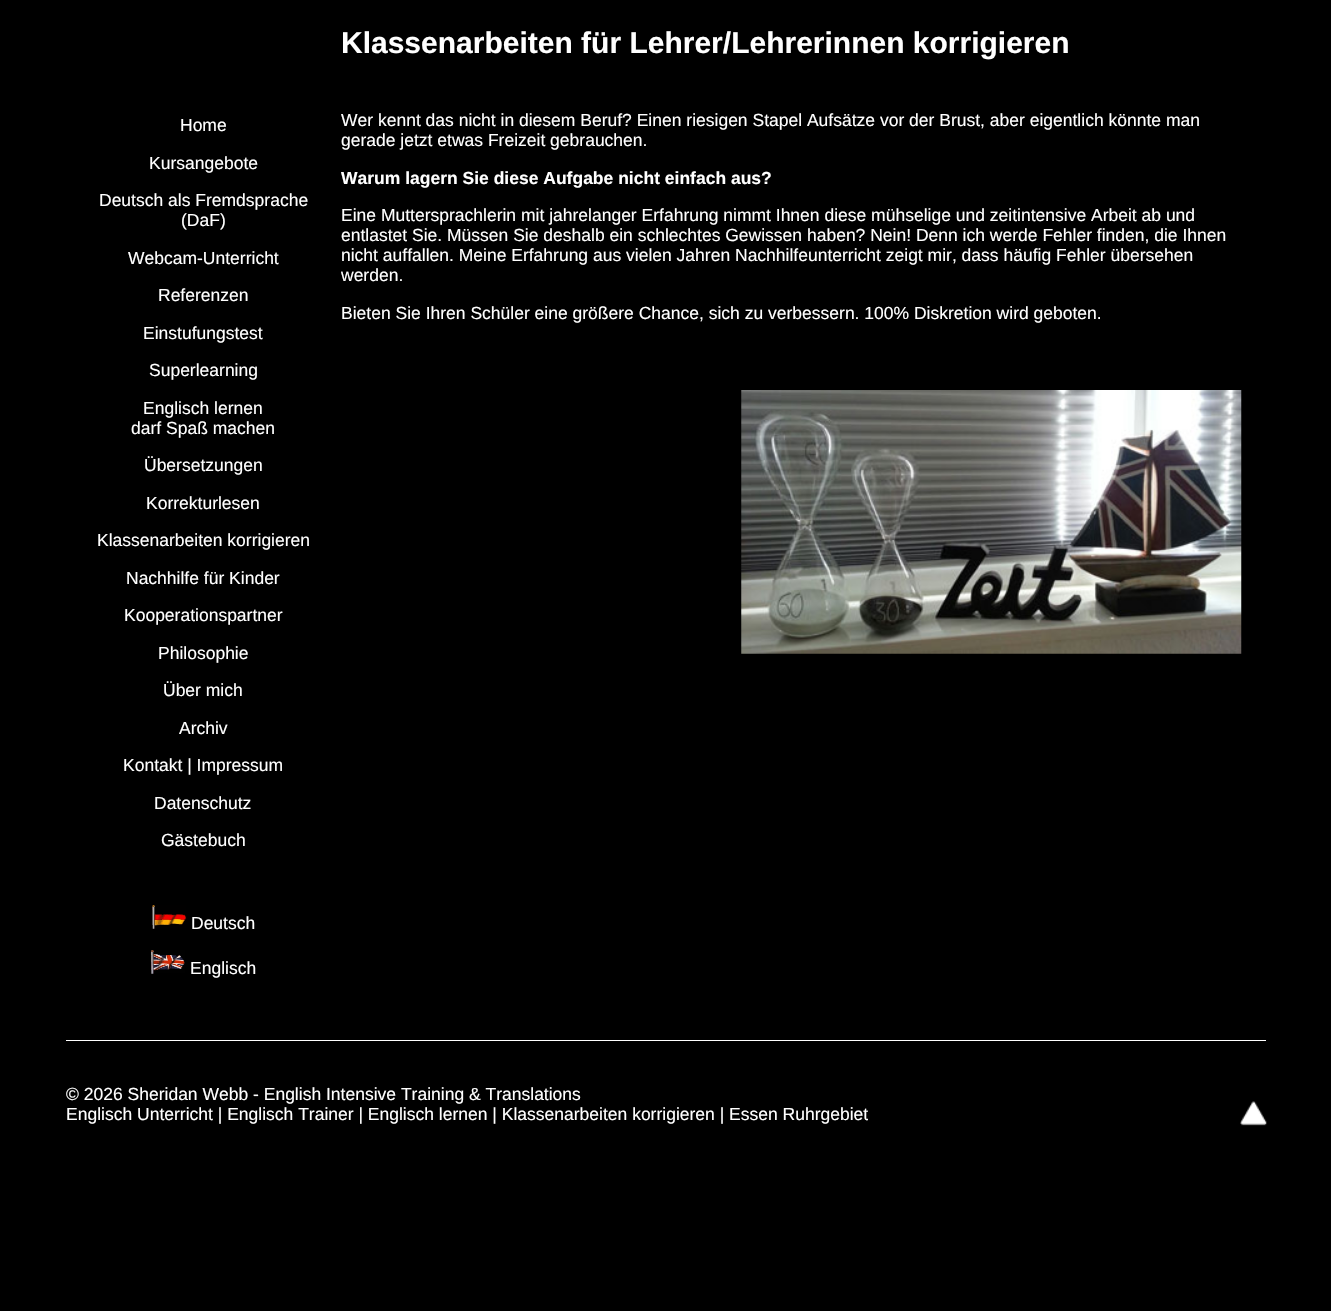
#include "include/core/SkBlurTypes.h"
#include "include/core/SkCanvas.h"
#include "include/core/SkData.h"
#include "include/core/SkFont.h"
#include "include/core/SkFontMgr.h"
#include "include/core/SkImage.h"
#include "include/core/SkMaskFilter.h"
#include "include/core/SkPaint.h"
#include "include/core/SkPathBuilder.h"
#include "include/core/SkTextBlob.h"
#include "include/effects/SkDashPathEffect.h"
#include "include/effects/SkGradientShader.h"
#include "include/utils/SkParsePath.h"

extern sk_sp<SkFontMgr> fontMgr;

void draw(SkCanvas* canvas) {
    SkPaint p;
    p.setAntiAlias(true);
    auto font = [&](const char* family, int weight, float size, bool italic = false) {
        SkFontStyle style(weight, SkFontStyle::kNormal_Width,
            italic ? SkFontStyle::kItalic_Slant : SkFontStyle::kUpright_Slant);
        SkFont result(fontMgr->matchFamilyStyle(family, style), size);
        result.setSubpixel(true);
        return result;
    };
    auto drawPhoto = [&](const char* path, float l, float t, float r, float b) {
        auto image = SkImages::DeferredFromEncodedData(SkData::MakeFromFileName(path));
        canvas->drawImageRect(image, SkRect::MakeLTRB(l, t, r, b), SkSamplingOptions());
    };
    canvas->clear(0xFF000000);
    auto font1 = font("Liberation Sans", 400, 17.5f);
    p.setColor(0xFFFFFFFF);
    {
        const struct { const char* s; float x, y; } items[] = {
            {"Home", 180, 131},
            {"Kursangebote", 149, 169},
            {"Deutsch als Fremdsprache", 99, 206},
            {"(DaF)", 181, 226},
            {"Webcam-Unterricht", 128, 264},
            {"Referenzen", 158, 301},
            {"Einstufungstest", 143, 339},
            {"Superlearning", 149, 376},
            {"Englisch lernen", 143, 414},
            {"darf Spaß machen", 131, 434},
            {"Übersetzungen", 144, 471},
            {"Korrekturlesen", 146, 509},
            {"Klassenarbeiten korrigieren", 97, 546},
            {"Nachhilfe für Kinder", 126, 584},
            {"Kooperationspartner", 124, 621},
            {"Philosophie", 158, 659},
            {"Über mich", 163, 696},
            {"Archiv", 179, 734},
            {"Kontakt | Impressum", 123, 771},
            {"Datenschutz", 154, 809},
            {"Gästebuch", 161, 846},
        };
        for (auto [s, x, y] : items) {
            canvas->drawString(s, x, y, font1, p);
        }
    }
    drawPhoto("media/1.png", 152, 905, 187, 929);
    canvas->drawString("Deutsch", 191, 929, font1, p);
    drawPhoto("media/2.png", 151, 950, 185, 974);
    canvas->drawString("Englisch", 190, 974, font1, p);
    auto font2 = font("Liberation Sans", 700, 30);
    canvas->drawString("Klassenarbeiten für Lehrer/Lehrerinnen korrigieren", 341, 53, font2, p);
    canvas->drawString("Wer kennt das nicht in diesem Beruf? Einen riesigen Stapel Aufsätze vor der Brust, aber eigentlich könnte man", 341, 126, font1, p);
    canvas->drawString("gerade jetzt etwas Freizeit gebrauchen.", 341, 146, font1, p);
    auto font3 = font("Liberation Sans", 700, 17.5f);
    canvas->drawString("Warum lagern Sie diese Aufgabe nicht einfach aus?", 341, 184, font3, p);
    {
        const struct { const char* s; float x, y; } items[] = {
            {"Eine Muttersprachlerin mit jahrelanger Erfahrung nimmt Ihnen diese mühselige und zeitintensive Arbeit ab und", 341, 221},
            {"entlastet Sie. Müssen Sie deshalb ein schlechtes Gewissen haben? Nein! Denn ich werde Fehler finden, die Ihnen", 341, 241},
            {"nicht auffallen. Meine Erfahrung aus vielen Jahren Nachhilfeunterricht zeigt mir, dass häufig Fehler übersehen", 341, 261},
            {"werden.", 341, 281},
            {"Bieten Sie Ihren Schüler eine größere Chance, sich zu verbessern. 100% Diskretion wird geboten.", 341, 319},
        };
        for (auto [s, x, y] : items) {
            canvas->drawString(s, x, y, font1, p);
        }
    }
    drawPhoto("media/3.png", 741, 390, 1242, 654);
    canvas->drawRect(SkRect::MakeLTRB(66, 1040, 1266, 1041), p);
    canvas->drawString("© 2026 Sheridan Webb - English Intensive Training & Translations", 66, 1100, font1, p);
    canvas->drawString("Englisch Unterricht | Englisch Trainer | Englisch lernen | Klassenarbeiten korrigieren | Essen Ruhrgebiet", 66, 1120, font1, p);
    drawPhoto("media/4.png", 1240, 1101, 1267, 1126);
}
